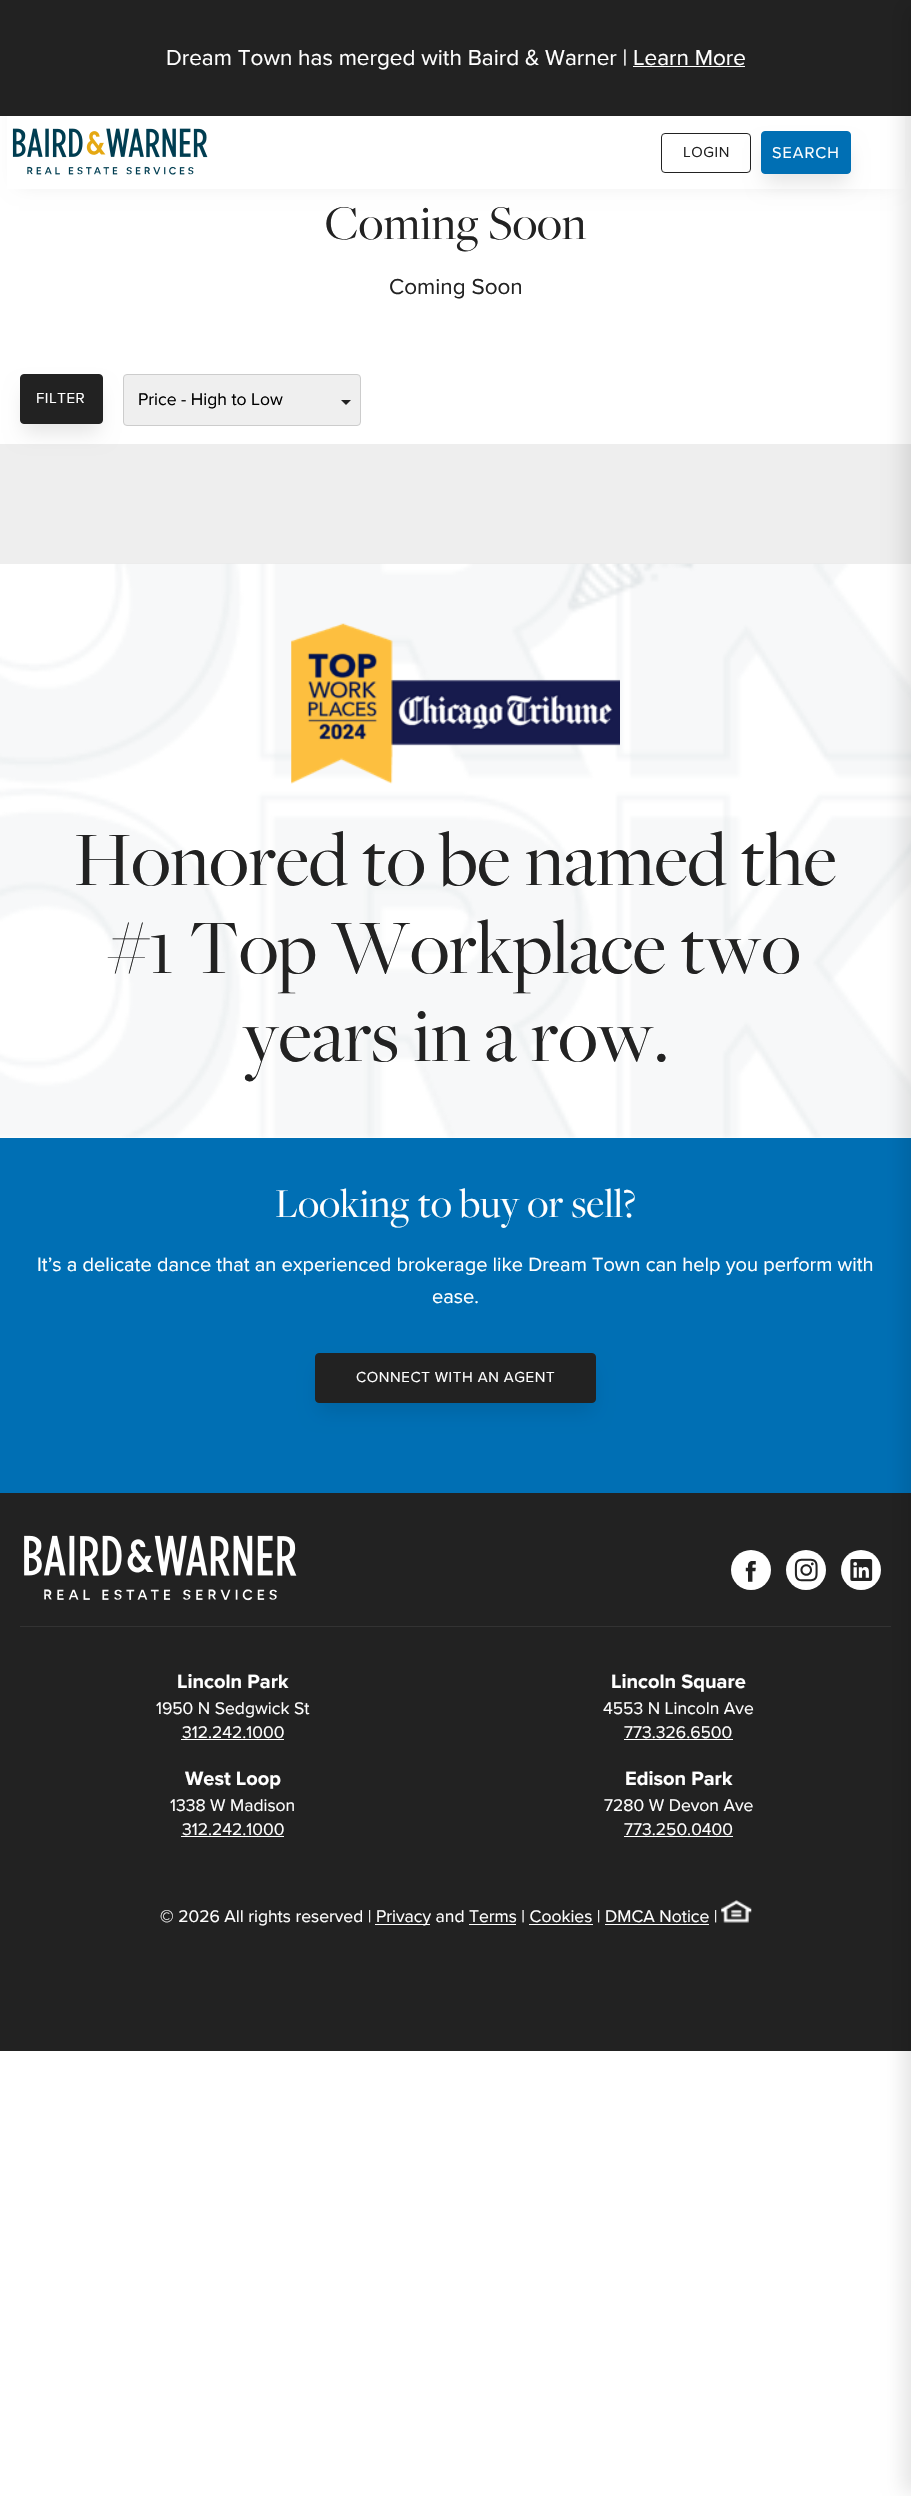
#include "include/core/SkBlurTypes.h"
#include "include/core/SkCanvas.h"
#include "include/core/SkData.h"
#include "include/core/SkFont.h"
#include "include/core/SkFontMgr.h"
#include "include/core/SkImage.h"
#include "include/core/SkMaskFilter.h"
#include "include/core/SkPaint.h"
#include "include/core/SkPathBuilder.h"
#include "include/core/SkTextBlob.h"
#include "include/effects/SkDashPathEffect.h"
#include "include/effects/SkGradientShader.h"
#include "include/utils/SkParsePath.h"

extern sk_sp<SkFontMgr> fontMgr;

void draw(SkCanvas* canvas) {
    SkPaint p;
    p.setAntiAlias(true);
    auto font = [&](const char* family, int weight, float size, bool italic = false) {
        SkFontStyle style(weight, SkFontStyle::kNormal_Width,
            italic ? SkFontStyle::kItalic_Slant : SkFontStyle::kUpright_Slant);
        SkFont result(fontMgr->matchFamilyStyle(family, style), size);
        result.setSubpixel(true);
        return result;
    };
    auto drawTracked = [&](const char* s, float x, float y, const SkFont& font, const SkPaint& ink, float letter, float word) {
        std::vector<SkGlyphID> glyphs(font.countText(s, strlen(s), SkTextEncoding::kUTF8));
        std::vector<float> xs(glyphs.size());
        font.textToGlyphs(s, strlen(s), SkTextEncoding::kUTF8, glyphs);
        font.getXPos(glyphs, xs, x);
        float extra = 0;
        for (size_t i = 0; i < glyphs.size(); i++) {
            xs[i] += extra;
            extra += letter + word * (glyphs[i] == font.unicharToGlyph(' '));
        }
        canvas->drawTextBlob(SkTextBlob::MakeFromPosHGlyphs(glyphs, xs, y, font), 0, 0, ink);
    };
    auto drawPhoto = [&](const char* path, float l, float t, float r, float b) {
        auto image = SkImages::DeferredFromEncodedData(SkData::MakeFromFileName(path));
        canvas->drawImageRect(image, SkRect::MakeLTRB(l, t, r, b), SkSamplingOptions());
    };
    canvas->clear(0xFFFFFFFF);
    p.setColor(0x1A000000);
    p.setMaskFilter(SkMaskFilter::MakeBlur(kNormal_SkBlurStyle, 9.5f));
    canvas->drawRect(SkRect::MakeLTRB(19, 31, 893, 183), p);
    p.setMaskFilter(nullptr);
    p.setColor(0xFFFFFFFF);
    canvas->drawRect(SkRect::MakeLTRB(7, 116, 905, 189), p);
    p.setColor(0xFF222222);
    canvas->drawRect(SkRect::MakeLTRB(0, 0, 911, 116), p);
    auto font1 = font("Proxima Nova", 400, 22.5f);
    p.setColor(0xFFFFFFFF);
    canvas->drawString("Dream Town has merged with Baird & Warner | Learn More", 166, 65, font1, p);
    canvas->drawRect(SkRect::MakeLTRB(633, 66, 745, 67), p);
    drawPhoto("media/1.png", 12, 128, 208, 175);
    p.setStyle(SkPaint::kStroke_Style);
    p.setStrokeWidth(1);
    p.setColor(0xFF222222);
    canvas->drawRoundRect(SkRect::MakeLTRB(661.5f, 133.5f, 750.5f, 172.5f), 3.5f, 3.5f, p);
    auto font2 = font("Proxima Nova", 400, 15);
    p.setStyle(SkPaint::kFill_Style);
    drawTracked("LOGIN", 683, 157, font2, p, 0.6f, 0);
    p.setColor(0x1A000000);
    p.setMaskFilter(SkMaskFilter::MakeBlur(kNormal_SkBlurStyle, 9.5f));
    canvas->drawRect(SkRect::MakeLTRB(765, 148, 848, 183), p);
    p.setMaskFilter(nullptr);
    p.setColor(0xFF006FB4);
    canvas->drawRoundRect(SkRect::MakeLTRB(761.5f, 131.5f, 850.5f, 173.5f), 3.5f, 3.5f, p);
    p.setStyle(SkPaint::kStroke_Style);
    canvas->drawRoundRect(SkRect::MakeLTRB(761.5f, 131.5f, 850.5f, 173.5f), 3.5f, 3.5f, p);
    auto font3 = font("Proxima Nova", 400, 16.25f);
    p.setStyle(SkPaint::kFill_Style);
    p.setColor(0xFFFFFFFF);
    drawTracked("SEARCH", 772, 158, font3, p, 1, 0);
    p.setColor(0xFFEEEEEE);
    canvas->drawRect(SkRect::MakeLTRB(0, 444, 911, 564), p);
    drawPhoto("media/2.png", 0, 563, 911, 1138);
    {
        const struct { float l, t, r, b; SkColor color; } items[] = {
            {0, 1138, 911, 1493, 0xFF006FB4},
            {0, 1493, 911, 2051, 0xFF222222},
            {20, 1626, 891, 1627, 0xFF333333},
        };
        for (auto [l, t, r, b, color] : items) {
            p.setColor(color);
            canvas->drawRect(SkRect::MakeLTRB(l, t, r, b), p);
        }
    }
    p.setColor(0xFFFFFFFF);
    canvas->drawCircle(861, 1570, 20, p);
    p.setColor(0x1A000000);
    p.setMaskFilter(SkMaskFilter::MakeBlur(kNormal_SkBlurStyle, 9.5f));
    canvas->drawRect(SkRect::MakeLTRB(903, 4, 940, 2493), p);
    p.setMaskFilter(nullptr);
    auto font4 = font("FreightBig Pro", 400, 50);
    p.setColor(0xFF222222);
    drawTracked("Coming Soon", 325, 239, font4, p, 0.3f, 0);
    canvas->drawString("Coming Soon", 389, 294, font1, p);
    p.setColor(0x1A000000);
    p.setMaskFilter(SkMaskFilter::MakeBlur(kNormal_SkBlurStyle, 9.5f));
    canvas->drawRect(SkRect::MakeLTRB(24, 390, 99, 433), p);
    p.setMaskFilter(nullptr);
    p.setColor(0xFF222222);
    canvas->drawRoundRect(SkRect::MakeLTRB(20.5f, 374.5f, 102.5f, 423.5f), 3.5f, 3.5f, p);
    p.setStyle(SkPaint::kStroke_Style);
    canvas->drawRoundRect(SkRect::MakeLTRB(20.5f, 374.5f, 102.5f, 423.5f), 3.5f, 3.5f, p);
    p.setStyle(SkPaint::kFill_Style);
    p.setColor(0xFFFFFFFF);
    drawTracked("FILTER", 36, 403, font2, p, 0.6f, 0);
    p.setColor(0xFFEFEFEF);
    canvas->drawRoundRect(SkRect::MakeLTRB(123.5f, 374.5f, 360.5f, 425.5f), 3.5f, 3.5f, p);
    p.setStyle(SkPaint::kStroke_Style);
    p.setColor(0xFFCCCCCC);
    canvas->drawRoundRect(SkRect::MakeLTRB(123.5f, 374.5f, 360.5f, 425.5f), 3.5f, 3.5f, p);
    auto font5 = font("Proxima Nova", 400, 17.5f);
    p.setStyle(SkPaint::kFill_Style);
    p.setColor(0xFF000000);
    canvas->drawString("Price - High to Low", 138, 405, font5, p);
    p.setColor(0xFF222222);
    canvas->drawPath(SkPathBuilder().moveTo(341, 400).lineTo(351, 400).lineTo(346, 405).close().detach(), p);
    drawPhoto("media/3.png", 291, 623, 620, 784);
    auto font6 = font("FreightBig Pro", 400, 80);
    {
        const struct { const char* s; float x, y; } items[] = {
            {"Honored to be named the", 74, 885},
            {"#1 Top Workplace two", 109, 973},
            {"years in a row.", 243, 1061},
        };
        for (auto [s, x, y] : items) {
            canvas->drawString(s, x, y, font6, p);
        }
    }
    auto font7 = font("FreightBig Pro", 400, 42.5f);
    p.setColor(0xFFFFFFFF);
    drawTracked("Looking to buy or sell?", 275, 1217, font7, p, 0.3f, 0);
    auto font8 = font("Proxima Nova", 400, 20);
    canvas->drawString("It’s a delicate dance that an experienced brokerage like Dream Town can help you perform with", 37, 1271, font8, p);
    canvas->drawString("ease.", 432, 1303, font8, p);
    p.setColor(0x1A000000);
    p.setMaskFilter(SkMaskFilter::MakeBlur(kNormal_SkBlurStyle, 9.5f));
    canvas->drawRect(SkRect::MakeLTRB(319, 1369, 593, 1411), p);
    p.setMaskFilter(nullptr);
    p.setColor(0xFF222222);
    canvas->drawRoundRect(SkRect::MakeLTRB(315.5f, 1353.5f, 595.5f, 1402.5f), 3.5f, 3.5f, p);
    p.setStyle(SkPaint::kStroke_Style);
    canvas->drawRoundRect(SkRect::MakeLTRB(315.5f, 1353.5f, 595.5f, 1402.5f), 3.5f, 3.5f, p);
    p.setStyle(SkPaint::kFill_Style);
    p.setColor(0xFFFFFFFF);
    drawTracked("CONNECT WITH AN AGENT", 356, 1382, font2, p, 0.6f, 0);
    drawPhoto("media/4.png", 24, 1535, 297, 1601);
    canvas->drawCircle(751, 1570, 20, p);
    drawPhoto("media/5.png", 745, 1561, 756, 1582);
    canvas->drawCircle(806, 1570, 20, p);
    drawPhoto("media/6.png", 794, 1558, 818, 1582);
    drawPhoto("media/7.png", 850, 1559, 873, 1581);
    auto font9 = font("Proxima Nova", 700, 20);
    canvas->drawString("Lincoln Park", 177, 1688, font9, p);
    canvas->drawString("1950 N Sedgwick St", 156, 1714, font5, p);
    canvas->drawString("312.242.1000", 182, 1738, font5, p);
    canvas->drawRect(SkRect::MakeLTRB(181, 1739, 284, 1740), p);
    canvas->drawString("Lincoln Square", 611, 1688, font9, p);
    canvas->drawString("4553 N Lincoln Ave", 603, 1714, font5, p);
    canvas->drawString("773.326.6500", 624, 1738, font5, p);
    canvas->drawRect(SkRect::MakeLTRB(624, 1739, 733, 1740), p);
    canvas->drawString("West Loop", 185, 1785, font9, p);
    canvas->drawString("1338 W Madison", 170, 1811, font5, p);
    canvas->drawString("312.242.1000", 182, 1835, font5, p);
    canvas->drawRect(SkRect::MakeLTRB(181, 1836, 284, 1837), p);
    canvas->drawString("Edison Park", 625, 1785, font9, p);
    canvas->drawString("7280 W Devon Ave", 604, 1811, font5, p);
    canvas->drawString("773.250.0400", 624, 1835, font5, p);
    canvas->drawRect(SkRect::MakeLTRB(624, 1836, 733, 1837), p);
    canvas->drawString("© 2026 All rights reserved |", 160, 1922, font5, p);
    canvas->drawRect(SkRect::MakeLTRB(375, 1924, 430, 1925), p);
    canvas->drawString("Privacy and Terms | Cookies | DMCA Notice |", 376, 1922, font5, p);
    drawPhoto("media/8.png", 721, 1900, 752, 1923);
    {
        const struct { float l, t, r, b; SkColor color; } items[] = {
            {469, 1924, 516, 1925, 0xFFFFFFFF},
            {529, 1924, 593, 1925, 0xFFFFFFFF},
            {605, 1924, 709, 1925, 0xFFFFFFFF},
        };
        for (auto [l, t, r, b, color] : items) {
            p.setColor(color);
            canvas->drawRect(SkRect::MakeLTRB(l, t, r, b), p);
        }
    }
}
